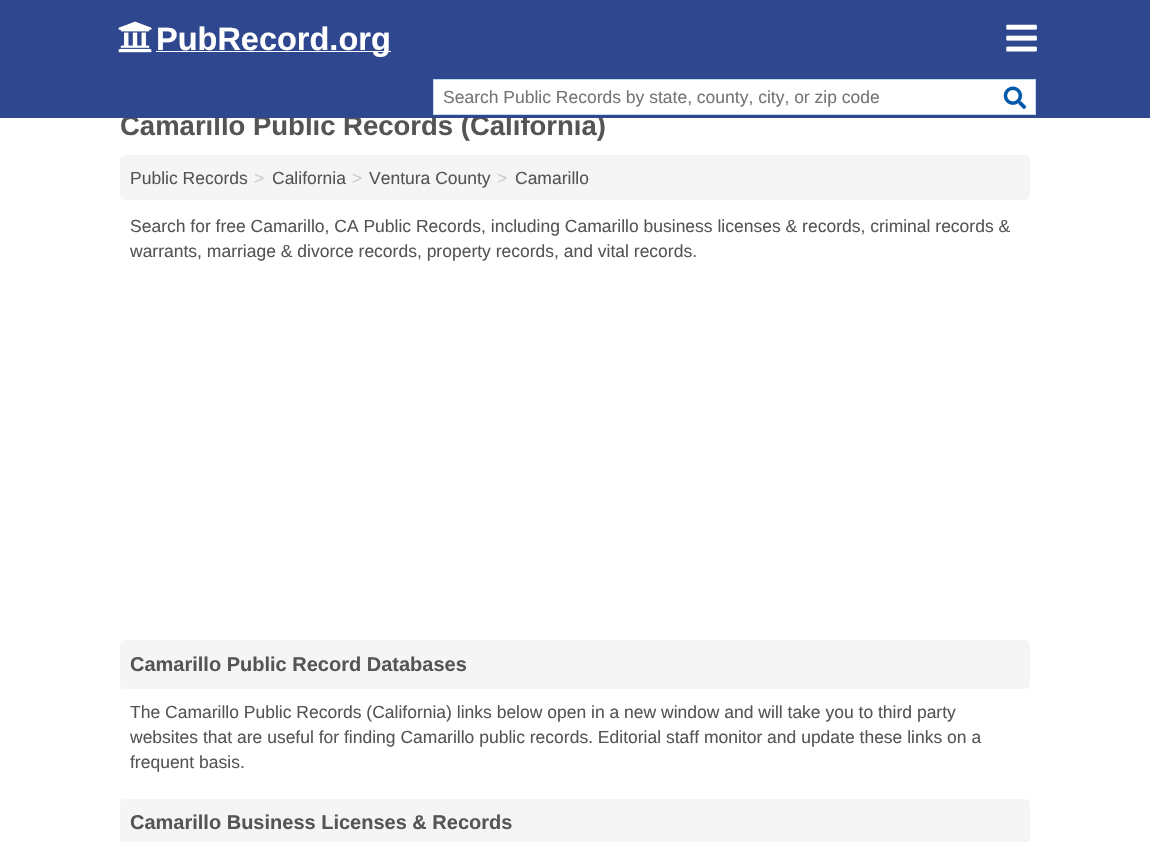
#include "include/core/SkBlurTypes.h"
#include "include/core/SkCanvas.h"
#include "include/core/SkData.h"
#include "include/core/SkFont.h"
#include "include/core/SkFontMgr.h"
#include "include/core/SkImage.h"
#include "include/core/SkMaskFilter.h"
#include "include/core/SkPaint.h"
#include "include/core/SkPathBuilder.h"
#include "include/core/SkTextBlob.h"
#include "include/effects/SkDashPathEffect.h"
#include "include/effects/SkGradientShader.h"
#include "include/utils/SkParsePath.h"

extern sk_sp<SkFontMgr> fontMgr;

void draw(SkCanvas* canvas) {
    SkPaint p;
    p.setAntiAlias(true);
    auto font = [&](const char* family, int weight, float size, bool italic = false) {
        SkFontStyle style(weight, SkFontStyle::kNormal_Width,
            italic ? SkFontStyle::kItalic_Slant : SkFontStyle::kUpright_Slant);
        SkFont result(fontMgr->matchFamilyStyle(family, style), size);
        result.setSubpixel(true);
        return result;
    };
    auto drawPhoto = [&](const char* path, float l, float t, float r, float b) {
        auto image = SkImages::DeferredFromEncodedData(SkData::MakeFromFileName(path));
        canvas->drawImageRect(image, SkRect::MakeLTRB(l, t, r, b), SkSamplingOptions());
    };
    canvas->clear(0xFFFFFFFF);
    auto font1 = font("Liberation Sans", 700, 27.5f);
    p.setColor(0xFF555555);
    canvas->drawString("Camarillo Public Records (California)", 120, 135, font1, p);
    p.setColor(0xFF2F478E);
    canvas->drawRect(SkRect::MakeLTRB(0, 0, 1150, 118), p);
    drawPhoto("media/1.png", 118, 21, 152, 53);
    p.setColor(0xFFFFFFFF);
    canvas->drawRect(SkRect::MakeLTRB(156, 51, 391, 52), p);
    auto font2 = font("Liberation Sans", 700, 32.5f);
    canvas->drawString("PubRecord.org", 156, 50, font2, p);
    drawPhoto("media/2.png", 1006, 24, 1037, 52);
    canvas->drawRect(SkRect::MakeLTRB(433.5f, 79.5f, 1035.5f, 114.5f), p);
    p.setStyle(SkPaint::kStroke_Style);
    p.setStrokeWidth(1);
    p.setColor(0xFFC5DAED);
    canvas->drawRect(SkRect::MakeLTRB(433.5f, 79.5f, 1035.5f, 114.5f), p);
    auto font3 = font("Liberation Sans", 400, 17.5f);
    p.setStyle(SkPaint::kFill_Style);
    p.setColor(0xFF757575);
    canvas->drawString("Search Public Records by state, county, city, or zip code", 443, 103, font3, p);
    drawPhoto("media/3.png", 1003, 86, 1027, 109);
    p.setColor(0xFFF5F5F5);
    canvas->drawRoundRect(SkRect::MakeLTRB(120, 155, 1030, 200), 5, 5, p);
    p.setColor(0xFF555555);
    canvas->drawString("Public Records", 130, 184, font3, p);
    p.setColor(0xFFCCCCCC);
    canvas->drawString(">", 254, 184, font3, p);
    p.setColor(0xFF555555);
    canvas->drawString("California", 272, 184, font3, p);
    p.setColor(0xFFCCCCCC);
    canvas->drawString(">", 352, 184, font3, p);
    p.setColor(0xFF555555);
    canvas->drawString("Ventura County", 369, 184, font3, p);
    p.setColor(0xFFCCCCCC);
    canvas->drawString(">", 497, 184, font3, p);
    p.setColor(0xFF555555);
    {
        const struct { const char* s; float x, y; } items[] = {
            {"Camarillo", 515, 184},
            {"Search for free Camarillo, CA Public Records, including Camarillo business licenses & records, criminal records &", 130, 232},
            {"warrants, marriage & divorce records, property records, and vital records.", 130, 257},
        };
        for (auto [s, x, y] : items) {
            canvas->drawString(s, x, y, font3, p);
        }
    }
    p.setColor(0xFFF5F5F5);
    canvas->drawRoundRect(SkRect::MakeLTRB(120, 640, 1030, 689), 5, 5, p);
    auto font4 = font("Liberation Sans", 700, 20);
    p.setColor(0xFF555555);
    canvas->drawString("Camarillo Public Record Databases", 130, 671, font4, p);
    {
        const struct { const char* s; float x, y; } items[] = {
            {"The Camarillo Public Records (California) links below open in a new window and will take you to third party", 130, 718},
            {"websites that are useful for finding Camarillo public records. Editorial staff monitor and update these links on a", 130, 743},
            {"frequent basis.", 130, 768},
        };
        for (auto [s, x, y] : items) {
            canvas->drawString(s, x, y, font3, p);
        }
    }
    p.setColor(0xFFF5F5F5);
    canvas->drawRoundRect(SkRect::MakeLTRB(120, 799, 1030, 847), 5, 5, p);
    p.setColor(0xFF555555);
    canvas->drawString("Camarillo Business Licenses & Records", 130, 829, font4, p);
}
